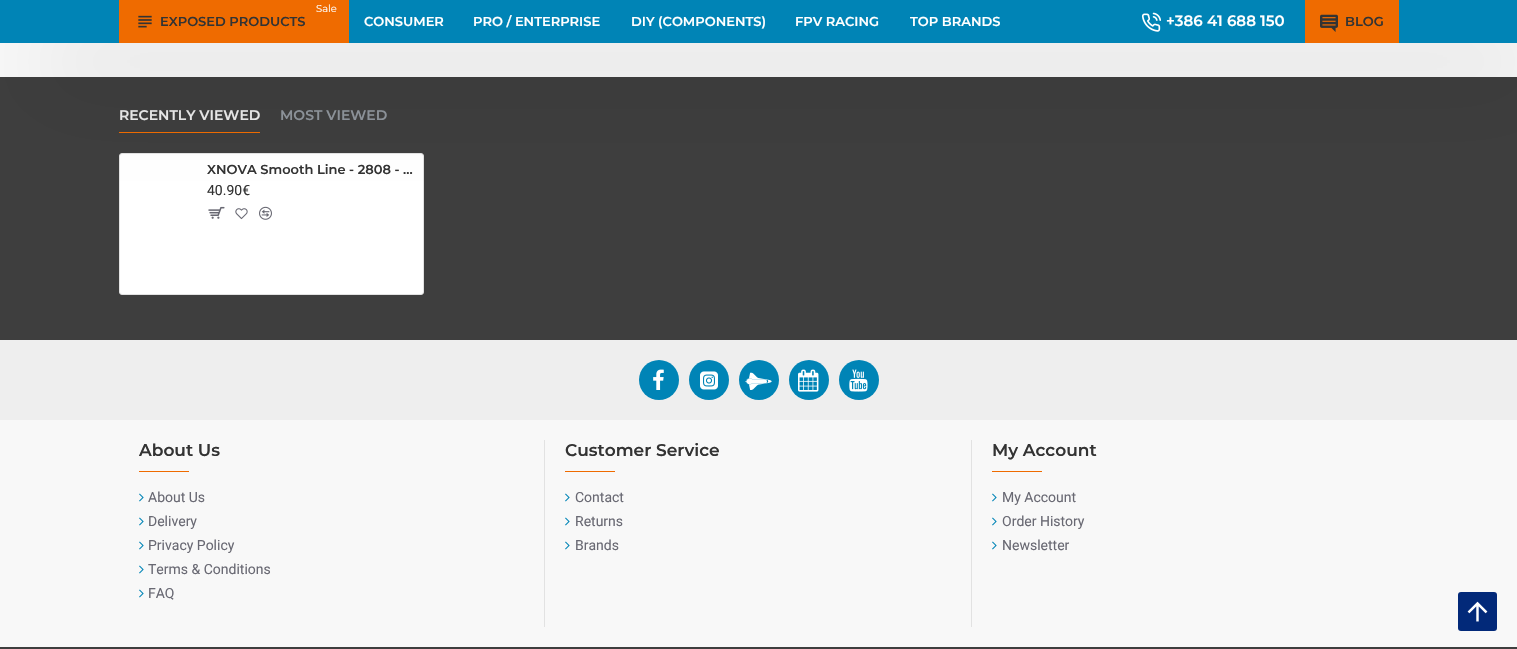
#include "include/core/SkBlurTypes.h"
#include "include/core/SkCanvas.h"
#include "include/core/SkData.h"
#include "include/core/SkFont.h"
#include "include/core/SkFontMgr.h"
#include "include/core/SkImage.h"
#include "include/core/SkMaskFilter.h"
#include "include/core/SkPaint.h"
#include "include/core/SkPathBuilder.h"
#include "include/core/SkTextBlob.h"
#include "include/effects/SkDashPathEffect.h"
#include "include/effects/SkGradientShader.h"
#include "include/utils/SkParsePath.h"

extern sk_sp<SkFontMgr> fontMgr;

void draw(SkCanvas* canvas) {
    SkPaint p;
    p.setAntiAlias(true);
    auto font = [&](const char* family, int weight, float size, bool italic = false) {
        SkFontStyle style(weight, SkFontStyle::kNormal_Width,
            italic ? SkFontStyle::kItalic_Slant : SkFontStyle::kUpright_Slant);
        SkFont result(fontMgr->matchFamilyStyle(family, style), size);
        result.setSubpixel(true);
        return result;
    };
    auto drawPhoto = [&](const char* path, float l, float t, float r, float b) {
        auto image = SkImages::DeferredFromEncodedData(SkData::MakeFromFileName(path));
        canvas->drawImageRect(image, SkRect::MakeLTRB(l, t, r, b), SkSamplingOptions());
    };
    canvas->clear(0xFFF8F8F8);
    p.setColor(0xFF3E3E3E);
    canvas->drawRect(SkRect::MakeLTRB(0, 77, 1517, 340), p);
    p.setColor(0xFFEF6B00);
    canvas->drawRect(SkRect::MakeLTRB(119, 132, 260, 133), p);
    p.setColor(0xFFFFFFFF);
    canvas->drawRoundRect(SkRect::MakeLTRB(119.5f, 153.5f, 423.5f, 294.5f), 2.5f, 2.5f, p);
    p.setStyle(SkPaint::kStroke_Style);
    p.setStrokeWidth(1);
    p.setColor(0xFFE2E2E2);
    canvas->drawRoundRect(SkRect::MakeLTRB(119.5f, 153.5f, 423.5f, 294.5f), 2.5f, 2.5f, p);
    drawPhoto("media/4.png", 208, 206, 225, 219);
    drawPhoto("media/5.png", 235, 208, 248, 220);
    drawPhoto("media/6.png", 259, 206, 272, 220);
    p.setStyle(SkPaint::kFill_Style);
    p.setColor(0x33000000);
    p.setMaskFilter(SkMaskFilter::MakeBlur(kNormal_SkBlurStyle, 45));
    canvas->drawRect(SkRect::MakeLTRB(40, 50, 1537, 73), p);
    p.setMaskFilter(nullptr);
    p.setColor(0xFF0084B6);
    canvas->drawRect(SkRect::MakeLTRB(0, 0, 1517, 43), p);
    p.setColor(0xFFEF6B00);
    canvas->drawRect(SkRect::MakeLTRB(119, 0, 349, 43), p);
    auto font1 = font("Montserrat", 400, 10);
    p.setColor(0xFFFFFFFF);
    canvas->drawString("Sale", 316, 12, font1, p);
    drawPhoto("media/1.png", 138, 15, 152, 28);
    auto font2 = font("Montserrat", 600, 13);
    p.setColor(0xFF333333);
    canvas->drawString("EXPOSED PRODUCTS", 160, 26, font2, p);
    p.setColor(0xFFFFFFFF);
    {
        const struct { const char* s; float x, y; } items[] = {
            {"CONSUMER", 364, 26},
            {"PRO / ENTERPRISE", 473, 26},
            {"DIY (COMPONENTS)", 631, 26},
            {"FPV RACING", 795, 26},
            {"TOP BRANDS", 910, 26},
        };
        for (auto [s, x, y] : items) {
            canvas->drawString(s, x, y, font2, p);
        }
    }
    drawPhoto("media/2.png", 1141, 12, 1161, 32);
    auto font3 = font("Montserrat", 600, 15);
    canvas->drawString("+386 41 688 150", 1166, 26, font3, p);
    p.setColor(0xFFEF6B00);
    canvas->drawRect(SkRect::MakeLTRB(1305, 0, 1399, 43), p);
    drawPhoto("media/3.png", 1320, 14, 1338, 32);
    p.setColor(0xFF333333);
    canvas->drawString("BLOG", 1345, 26, font2, p);
    auto font4 = font("Montserrat", 600, 14);
    p.setColor(0xFFE6E6E6);
    canvas->drawString("RECENTLY VIEWED", 119, 120, font4, p);
    p.setColor(0xFF8B9198);
    canvas->drawString("MOST VIEWED", 280, 120, font4, p);
    p.setColor(0xFF333333);
    canvas->drawString("XNOVA Smooth Line - 2808 - …", 207, 174, font2, p);
    auto font5 = font("Roboto", 400, 14);
    canvas->drawString("40.90€", 207, 195, font5, p);
    p.setColor(0xFFEEEEEE);
    canvas->drawRect(SkRect::MakeLTRB(0, 340, 1517, 420), p);
    p.setColor(0xFF0084B6);
    canvas->drawCircle(659, 380, 20, p);
    drawPhoto("media/7.png", 653, 369, 664, 390);
    canvas->drawCircle(709, 380, 20, p);
    drawPhoto("media/8.png", 700, 371, 718, 390);
    canvas->drawCircle(759, 380, 20, p);
    drawPhoto("media/9.png", 745, 372, 772, 390);
    canvas->drawCircle(809, 380, 20, p);
    drawPhoto("media/10.png", 798, 369, 819, 392);
    canvas->drawCircle(859, 380, 20, p);
    drawPhoto("media/11.png", 849, 369, 868, 392);
    p.setColor(0xFFE2E2E2);
    canvas->drawRect(SkRect::MakeLTRB(544, 440, 545, 627), p);
    auto font6 = font("Montserrat", 600, 17);
    p.setColor(0xFF333333);
    canvas->drawString("About Us", 139, 456, font6, p);
    p.setColor(0xFFEF6B00);
    canvas->drawRect(SkRect::MakeLTRB(139, 471, 189, 472), p);
    drawPhoto("media/12.png", 139, 493, 144, 502);
    p.setColor(0xFF696973);
    canvas->drawString("About Us", 148, 502, font5, p);
    drawPhoto("media/12.png", 139, 517, 144, 526);
    canvas->drawString("Delivery", 148, 526, font5, p);
    drawPhoto("media/12.png", 139, 541, 144, 550);
    canvas->drawString("Privacy Policy", 148, 550, font5, p);
    drawPhoto("media/12.png", 139, 565, 144, 574);
    canvas->drawString("Terms & Conditions", 148, 574, font5, p);
    drawPhoto("media/12.png", 139, 589, 144, 598);
    canvas->drawString("FAQ", 148, 598, font5, p);
    p.setColor(0xFFE2E2E2);
    canvas->drawRect(SkRect::MakeLTRB(971, 440, 972, 627), p);
    p.setColor(0xFF333333);
    canvas->drawString("Customer Service", 565, 456, font6, p);
    p.setColor(0xFFEF6B00);
    canvas->drawRect(SkRect::MakeLTRB(565, 471, 615, 472), p);
    drawPhoto("media/12.png", 565, 493, 570, 502);
    p.setColor(0xFF696973);
    canvas->drawString("Contact", 575, 502, font5, p);
    drawPhoto("media/12.png", 565, 517, 570, 526);
    canvas->drawString("Returns", 575, 526, font5, p);
    drawPhoto("media/12.png", 565, 541, 570, 550);
    canvas->drawString("Brands", 575, 550, font5, p);
    p.setColor(0xFF333333);
    canvas->drawString("My Account", 992, 456, font6, p);
    p.setColor(0xFFEF6B00);
    canvas->drawRect(SkRect::MakeLTRB(992, 471, 1042, 472), p);
    drawPhoto("media/12.png", 992, 493, 997, 502);
    p.setColor(0xFF696973);
    canvas->drawString("My Account", 1002, 502, font5, p);
    drawPhoto("media/12.png", 992, 517, 997, 526);
    canvas->drawString("Order History", 1002, 526, font5, p);
    drawPhoto("media/12.png", 992, 541, 997, 550);
    canvas->drawString("Newsletter", 1002, 550, font5, p);
    p.setColor(0xFF3E3E3E);
    canvas->drawRect(SkRect::MakeLTRB(0, 647, 1517, 649), p);
    p.setColor(0xFF022979);
    canvas->drawRoundRect(SkRect::MakeLTRB(1458, 592, 1497, 631), 3, 3, p);
    drawPhoto("media/13.png", 1467, 601, 1488, 622);
}
